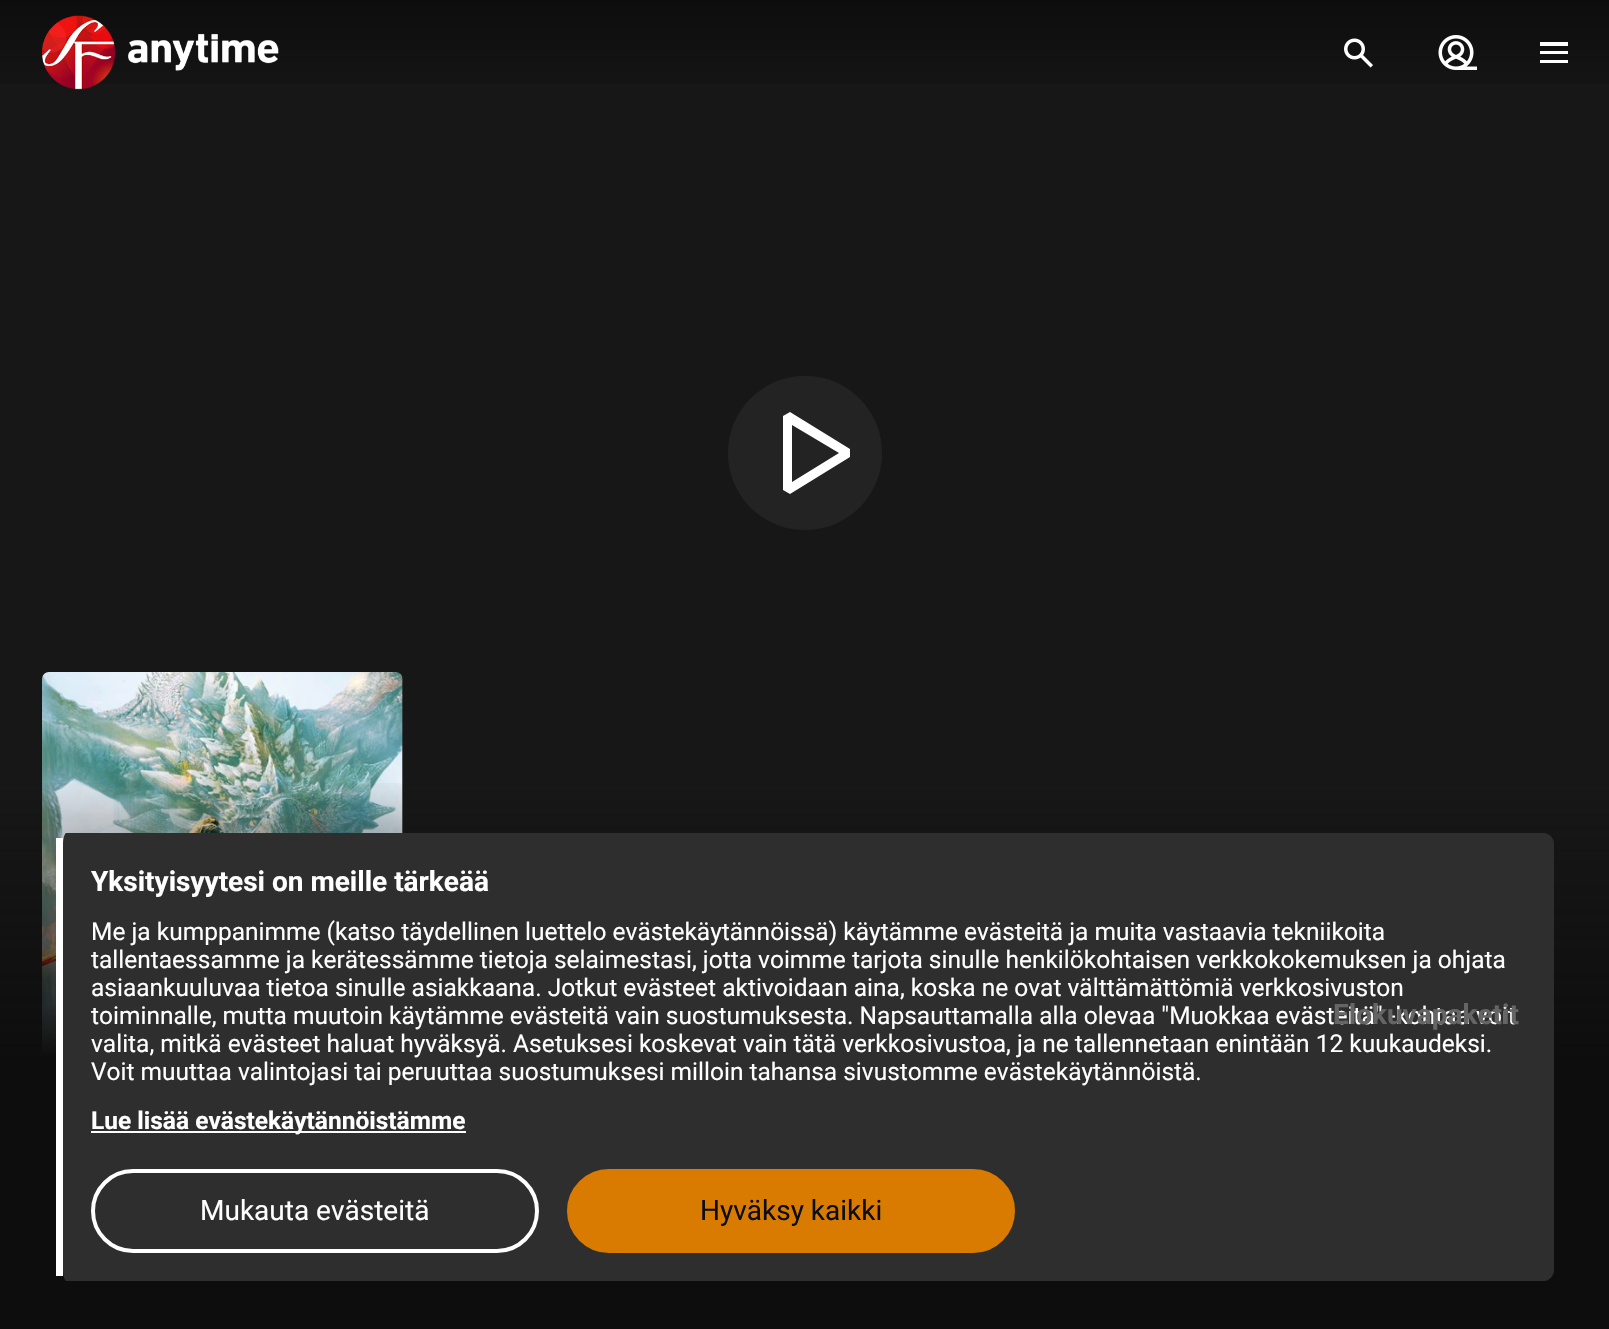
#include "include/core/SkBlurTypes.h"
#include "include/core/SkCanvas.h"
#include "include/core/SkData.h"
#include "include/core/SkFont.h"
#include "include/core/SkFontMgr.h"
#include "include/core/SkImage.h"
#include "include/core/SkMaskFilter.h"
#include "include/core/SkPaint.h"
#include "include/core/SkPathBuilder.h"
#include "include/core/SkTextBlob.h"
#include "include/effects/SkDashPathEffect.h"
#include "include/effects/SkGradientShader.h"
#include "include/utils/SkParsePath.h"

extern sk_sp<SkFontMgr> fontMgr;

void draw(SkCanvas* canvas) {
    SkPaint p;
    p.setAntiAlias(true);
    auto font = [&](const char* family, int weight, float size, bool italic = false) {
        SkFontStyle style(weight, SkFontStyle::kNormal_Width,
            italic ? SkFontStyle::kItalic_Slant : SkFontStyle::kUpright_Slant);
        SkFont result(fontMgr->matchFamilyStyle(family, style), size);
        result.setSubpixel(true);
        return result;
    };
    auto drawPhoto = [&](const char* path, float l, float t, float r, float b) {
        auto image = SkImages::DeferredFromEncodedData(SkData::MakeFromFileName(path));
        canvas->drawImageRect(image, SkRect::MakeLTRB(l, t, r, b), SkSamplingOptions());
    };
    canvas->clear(0xFF171717);
    {
        const SkColor colors[] = {0xFF171717, 0xFF0D0D0D};
        const float stops[] = {0, 1};
        const SkPoint ends[] = {{805, 112}, {805, 0}};
        p.setShader(SkGradientShader::MakeLinear(ends, colors, stops, 2, SkTileMode::kClamp));
        p.setAlpha(255);
    }
    canvas->drawRect(SkRect::MakeLTRB(0, 0, 1609, 84), p);
    drawPhoto("media/1.png", 42, 15, 279, 90);
    drawPhoto("media/2.png", 1344, 38, 1373, 68);
    drawPhoto("media/3.png", 1438, 35, 1477, 70);
    p.setShader(nullptr);
    {
        const struct { float l, t, r, b; SkColor color; } items[] = {
            {1540, 60, 1568, 63, 0xFFFFFFFF},
            {1540, 42, 1568, 46, 0xFFFFFFFF},
            {1540, 51, 1568, 54, 0xFFFFFFFF},
        };
        for (auto [l, t, r, b, color] : items) {
            p.setColor(color);
            canvas->drawRect(SkRect::MakeLTRB(l, t, r, b), p);
        }
    }
    p.setColor(0xFF232323);
    canvas->drawCircle(805, 453, 77, p);
    p.setColor(0xFFFFFFFF);
    canvas->drawPath(SkPathBuilder().moveTo(790, 494).lineTo(783, 490).lineTo(783, 416).lineTo(790, 412).lineTo(850, 449).lineTo(850, 457).close().moveTo(792, 425).lineTo(792, 482).lineTo(839, 453).close().detach(), p);
    p.setColor(0xFF242424);
    canvas->drawRoundRect(SkRect::MakeLTRB(42, 672, 403, 1194), 7, 7, p);
    drawPhoto("media/4.png", 42, 672, 403, 1055);
    {
        const SkColor colors[] = {0xFF0D0D0D, 0xFF0D0D0D, 0x000D0D0D};
        const float stops[] = {0, 0.5f, 1};
        const SkPoint ends[] = {{805, 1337}, {805, 777}};
        p.setShader(SkGradientShader::MakeLinear(ends, colors, stops, 3, SkTileMode::kClamp));
        p.setAlpha(255);
    }
    canvas->drawRect(SkRect::MakeLTRB(0, 783, 1609, 1329), p);
    p.setShader(nullptr);
    p.setColor(0xFF2E2E2E);
    canvas->drawPath(SkPathBuilder().moveTo(66, 833).lineTo(1544, 833).cubicTo(1549, 833, 1554, 838, 1554, 844).lineTo(1554, 1270).cubicTo(1554, 1276, 1549, 1281, 1544, 1281).lineTo(66, 1281).cubicTo(65, 1281, 63, 1276, 63, 1270).lineTo(63, 844).cubicTo(63, 838, 65, 833, 66, 833).close().detach(), p);
    p.setColor(0xFFFFFFFF);
    canvas->drawRect(SkRect::MakeLTRB(56, 838, 63, 1276), p);
    auto font1 = font("Roboto", 700, 28);
    canvas->drawString("Yksityisyytesi on meille tärkeää", 91, 891, font1, p);
    auto font2 = font("Roboto", 400, 24.5f);
    {
        const struct { const char* s; float x, y; } items[] = {
            {"Me ja kumppanimme (katso täydellinen luettelo evästekäytännöissä) käytämme evästeitä ja muita vastaavia tekniikoita", 91, 940},
            {"tallentaessamme ja kerätessämme tietoja selaimestasi, jotta voimme tarjota sinulle henkilökohtaisen verkkokokemuksen ja ohjata", 91, 968},
            {"asiaankuuluvaa tietoa sinulle asiakkaana. Jotkut evästeet aktivoidaan aina, koska ne ovat välttämättömiä verkkosivuston", 91, 996},
            {"toiminnalle, mutta muutoin käytämme evästeitä vain suostumuksesta. Napsauttamalla alla olevaa \"Muokkaa evästeitä\" -kohtaa voit", 91, 1024},
            {"valita, mitkä evästeet haluat hyväksyä. Asetuksesi koskevat vain tätä verkkosivustoa, ja ne tallennetaan enintään 12 kuukaudeksi.", 91, 1052},
            {"Voit muuttaa valintojasi tai peruuttaa suostumuksesi milloin tahansa sivustomme evästekäytännöistä.", 91, 1080},
        };
        for (auto [s, x, y] : items) {
            canvas->drawString(s, x, y, font2, p);
        }
    }
    canvas->drawRect(SkRect::MakeLTRB(91, 1131, 466, 1133), p);
    auto font3 = font("Roboto", 700, 24.5f);
    canvas->drawString("Lue lisää evästekäytännöistämme", 91, 1129, font3, p);
    p.setStyle(SkPaint::kStroke_Style);
    p.setStrokeWidth(4);
    canvas->drawRoundRect(SkRect::MakeLTRB(93, 1171, 537, 1251), 40, 40, p);
    auto font4 = font("Roboto", 400, 28);
    p.setStyle(SkPaint::kFill_Style);
    canvas->drawString("Mukauta evästeitä", 200, 1220, font4, p);
    p.setColor(0xFFD87B00);
    canvas->drawRoundRect(SkRect::MakeLTRB(569, 1171, 1013, 1251), 40, 40, p);
    p.setStyle(SkPaint::kStroke_Style);
    canvas->drawRoundRect(SkRect::MakeLTRB(569, 1171, 1013, 1251), 40, 40, p);
    p.setStyle(SkPaint::kFill_Style);
    p.setColor(0xFF0D0D0D);
    canvas->drawString("Hyväksy kaikki", 700, 1220, font4, p);
    p.setColor(0xFF656565);
    canvas->drawString("Elokuvapaketit", 1333, 1024, font1, p);
}
